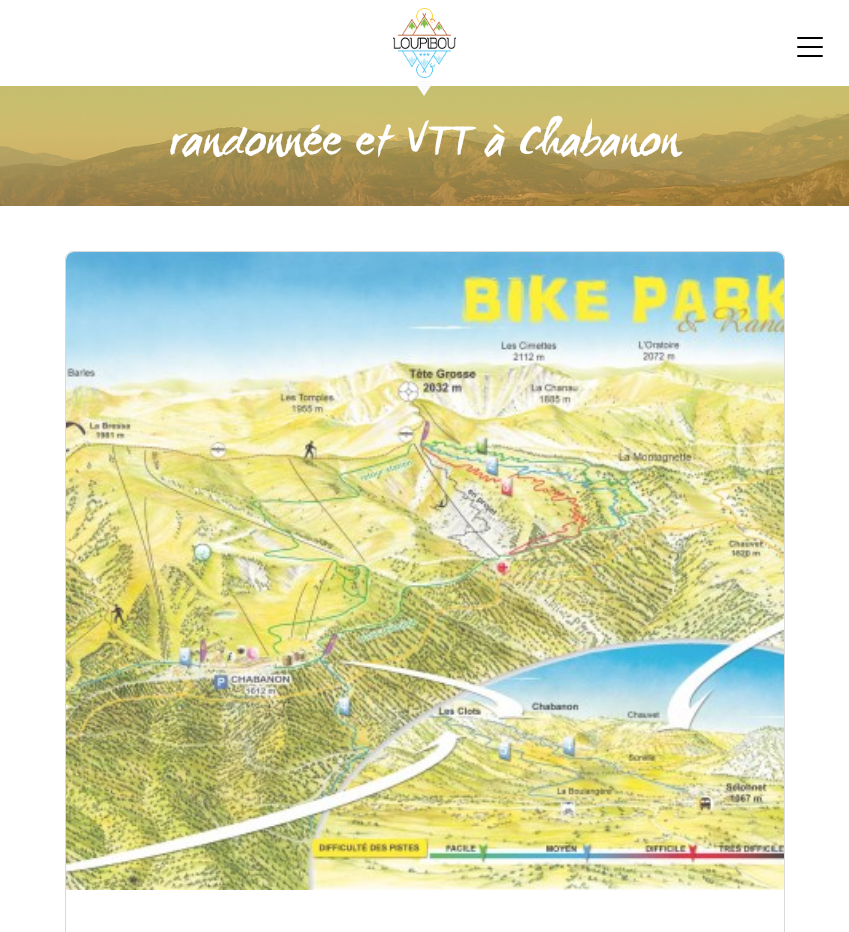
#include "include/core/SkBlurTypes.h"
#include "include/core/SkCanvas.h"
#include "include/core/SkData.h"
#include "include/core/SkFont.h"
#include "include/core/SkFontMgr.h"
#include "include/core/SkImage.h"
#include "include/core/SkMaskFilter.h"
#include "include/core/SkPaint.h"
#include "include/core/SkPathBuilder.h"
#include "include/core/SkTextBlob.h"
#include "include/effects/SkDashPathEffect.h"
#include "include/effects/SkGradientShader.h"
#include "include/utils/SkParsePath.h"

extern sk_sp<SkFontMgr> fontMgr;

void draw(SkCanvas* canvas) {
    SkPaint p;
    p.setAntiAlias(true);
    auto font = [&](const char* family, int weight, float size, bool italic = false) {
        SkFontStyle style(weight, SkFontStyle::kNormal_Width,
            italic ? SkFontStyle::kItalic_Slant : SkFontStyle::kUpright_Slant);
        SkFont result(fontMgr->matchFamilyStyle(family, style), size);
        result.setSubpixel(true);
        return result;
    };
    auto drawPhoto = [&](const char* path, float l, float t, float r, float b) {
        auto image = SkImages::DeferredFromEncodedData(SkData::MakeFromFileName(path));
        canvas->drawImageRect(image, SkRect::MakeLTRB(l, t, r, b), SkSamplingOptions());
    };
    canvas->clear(0xFFFFFFFF);
    drawPhoto("media/1.png", 393, 8, 456, 78);
    p.setColor(0xFF000000);
    canvas->drawRoundRect(SkRect::MakeLTRB(797, 37, 823, 39), 1, 1, p);
    canvas->drawRoundRect(SkRect::MakeLTRB(797, 46, 823, 48), 1, 1, p);
    canvas->drawRoundRect(SkRect::MakeLTRB(797, 55, 823, 57), 1, 1, p);
    drawPhoto("media/2.png", 0, 86, 849, 206);
    p.setColor(0xFFFBFBFB);
    canvas->drawPath(SkPathBuilder().moveTo(414, 81).lineTo(434, 81).lineTo(424, 96).close().detach(), p);
    auto font1 = font("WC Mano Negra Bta", 400, 46);
    p.setColor(0xFFFFFFFF);
    canvas->drawString("randonnée et VTT à Chabanon", 170, 152, font1, p);
    p.setStyle(SkPaint::kStroke_Style);
    p.setStrokeWidth(1);
    p.setColor(0xFFDADADA);
    canvas->drawRoundRect(SkRect::MakeLTRB(65.5f, 251.5f, 784.5f, 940.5f), 7.5f, 7.5f, p);
    drawPhoto("media/3.png", 66, 252, 784, 890);
}
